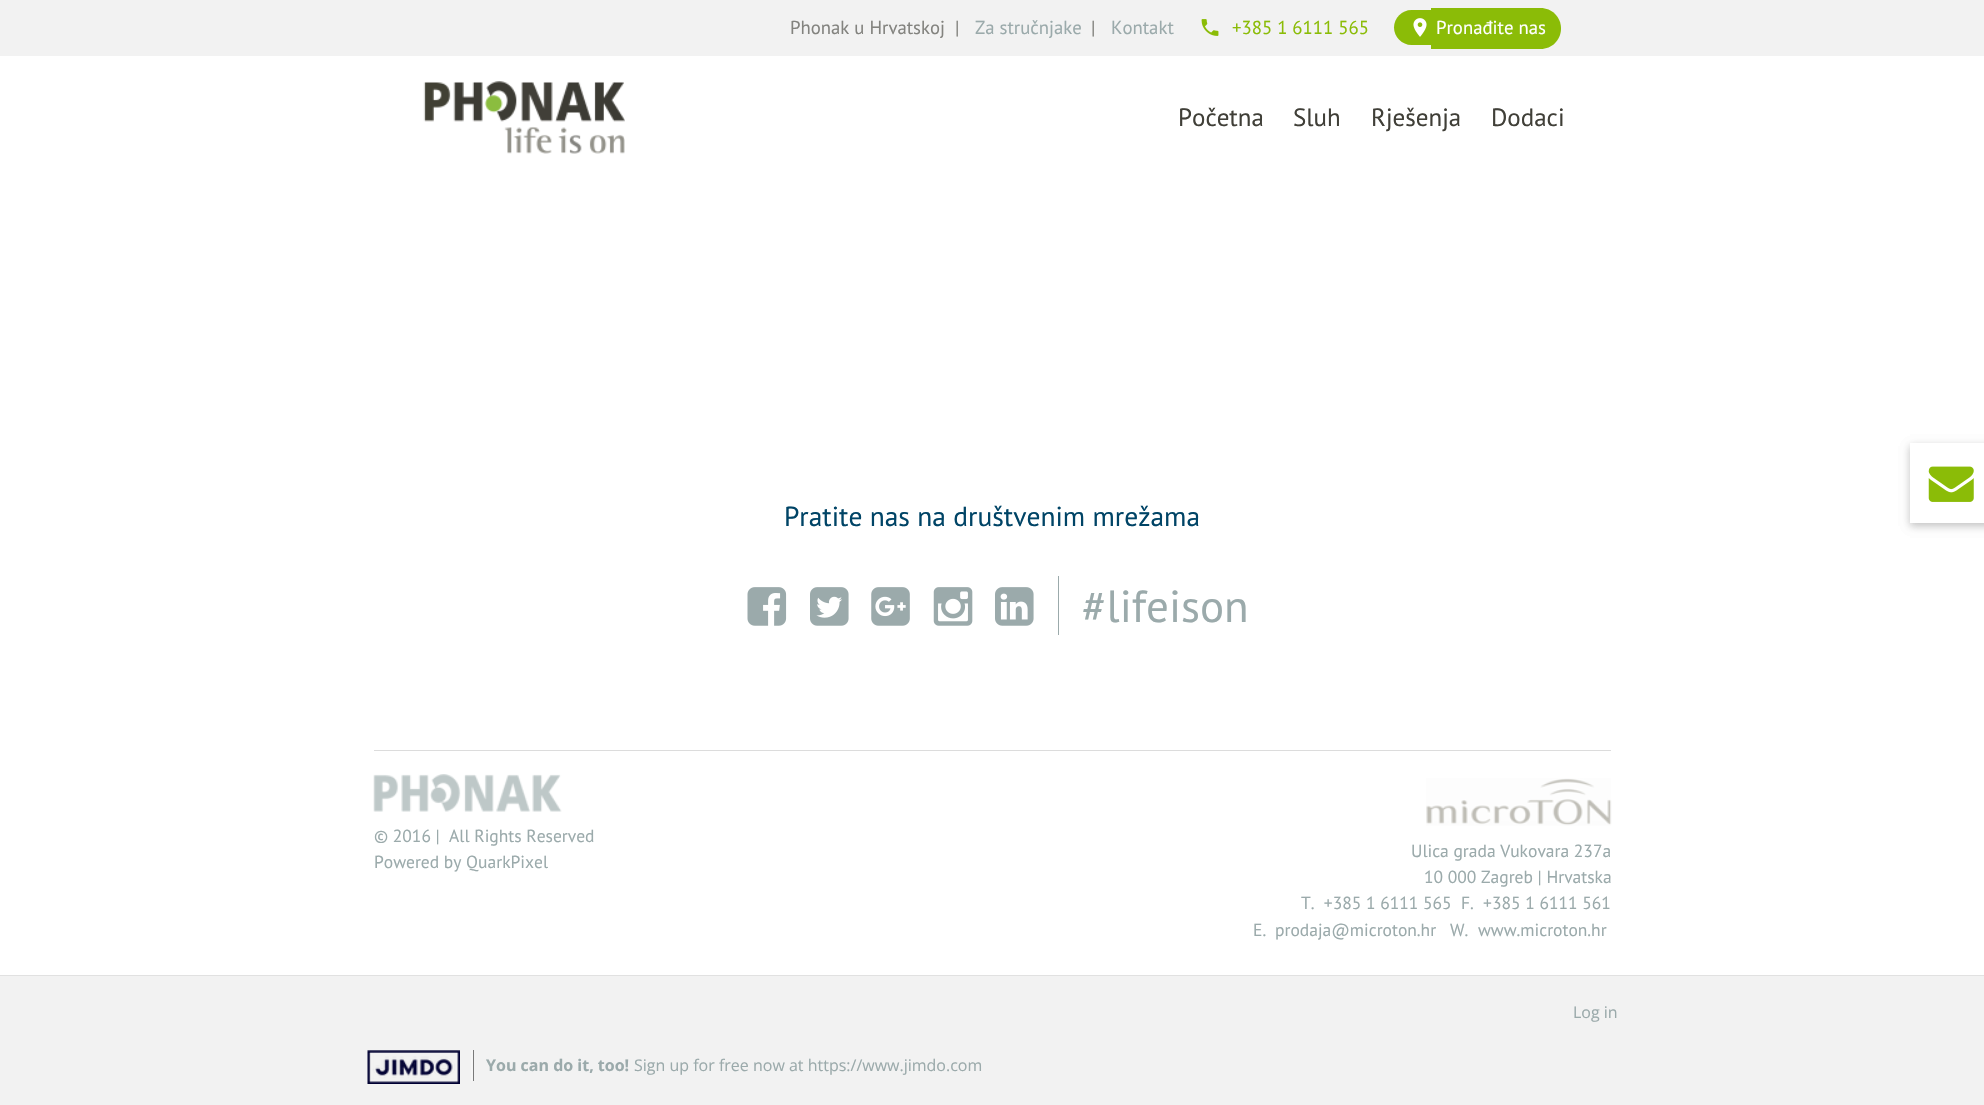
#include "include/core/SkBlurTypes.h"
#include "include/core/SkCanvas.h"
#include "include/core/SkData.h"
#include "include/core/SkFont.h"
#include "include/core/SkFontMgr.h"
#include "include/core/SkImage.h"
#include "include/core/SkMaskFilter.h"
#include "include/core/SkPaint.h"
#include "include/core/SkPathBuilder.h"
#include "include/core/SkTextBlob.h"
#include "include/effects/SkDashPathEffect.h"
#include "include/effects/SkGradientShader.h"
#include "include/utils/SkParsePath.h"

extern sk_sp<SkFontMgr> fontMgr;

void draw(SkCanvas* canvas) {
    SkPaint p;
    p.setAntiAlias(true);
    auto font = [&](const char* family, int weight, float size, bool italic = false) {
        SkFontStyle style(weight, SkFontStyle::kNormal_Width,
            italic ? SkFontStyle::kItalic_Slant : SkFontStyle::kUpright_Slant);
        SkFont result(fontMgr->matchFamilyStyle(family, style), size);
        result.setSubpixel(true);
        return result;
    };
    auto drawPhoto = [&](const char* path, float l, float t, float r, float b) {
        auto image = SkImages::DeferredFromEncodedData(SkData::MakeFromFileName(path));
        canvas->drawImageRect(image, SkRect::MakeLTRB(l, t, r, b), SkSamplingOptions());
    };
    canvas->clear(0xFFFFFFFF);
    p.setColor(0xFFF2F2F2);
    canvas->drawRect(SkRect::MakeLTRB(0, 0, 1984, 56), p);
    auto font1 = font("PT Sans", 400, 18.75f);
    p.setColor(0xFF83837F);
    canvas->drawString("Phonak u Hrvatskoj", 790, 34, font1, p);
    canvas->drawString("|", 955, 34, font1, p);
    p.setColor(0xFF9BAAAB);
    canvas->drawString("Za stručnjake", 975, 34, font1, p);
    p.setColor(0xFF83837F);
    canvas->drawString("|", 1091, 34, font1, p);
    p.setColor(0xFF9BAAAB);
    canvas->drawString("Kontakt", 1111, 34, font1, p);
    drawPhoto("media/1.png", 1201, 19, 1219, 36);
    p.setColor(0xFF8BBC07);
    canvas->drawString("+385 1 6111 565", 1232, 34, font1, p);
    canvas->drawPath(SkPathBuilder().moveTo(1411.5f, 10).lineTo(1431, 10).lineTo(1431, 45).lineTo(1411.5f, 45).cubicTo(1402, 45, 1394, 37, 1394, 27.5f).cubicTo(1394, 18, 1402, 10, 1411.5f, 10).close().detach(), p);
    canvas->drawPath(SkPathBuilder().moveTo(1431, 8).lineTo(1540.5f, 8).cubicTo(1552, 8, 1561, 17, 1561, 28.5f).cubicTo(1561, 40, 1552, 49, 1540.5f, 49).lineTo(1431, 49).close().detach(), p);
    drawPhoto("media/2.png", 1413, 18, 1427, 37);
    p.setColor(0xFFFFFFFF);
    canvas->drawString("Pronađite nas", 1436, 34, font1, p);
    p.setColor(0x26000000);
    p.setMaskFilter(SkMaskFilter::MakeBlur(kNormal_SkBlurStyle, 4));
    canvas->drawRect(SkRect::MakeLTRB(1910, 446, 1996, 526), p);
    p.setMaskFilter(nullptr);
    p.setColor(0x1A000000);
    p.setMaskFilter(SkMaskFilter::MakeBlur(kNormal_SkBlurStyle, 4));
    canvas->drawRect(SkRect::MakeLTRB(1910, 446, 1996, 526), p);
    p.setMaskFilter(nullptr);
    p.setColor(0xFFFFFFFF);
    canvas->drawRect(SkRect::MakeLTRB(1910, 443, 1984, 523), p);
    drawPhoto("media/3.png", 1928, 466, 1974, 502);
    auto font2 = font("PT Sans", 400, 27.5f);
    p.setColor(0xFF004466);
    canvas->drawString("Pratite nas na društvenim mrežama", 784, 526, font2, p);
    drawPhoto("media/4.png", 747, 587, 787, 626);
    drawPhoto("media/5.png", 810, 587, 849, 626);
    drawPhoto("media/6.png", 871, 587, 910, 626);
    drawPhoto("media/7.png", 933, 587, 973, 626);
    drawPhoto("media/8.png", 995, 587, 1034, 626);
    auto font3 = font("PT Sans", 400, 45);
    p.setColor(0xFF9BAAAB);
    canvas->drawString("#lifeison", 1082, 622, font3, p);
    canvas->drawRect(SkRect::MakeLTRB(1058, 576, 1059, 635), p);
    p.setColor(0xFFDCDCDC);
    canvas->drawRect(SkRect::MakeLTRB(374, 750, 1611, 751), p);
    drawPhoto("media/9.png", 373, 774, 562, 812);
    auto font4 = font("PT Sans", 400, 17.5f);
    p.setColor(0xFF9BAAAB);
    canvas->drawString("© 2016 |  All Rights Reserved", 374, 842, font4, p);
    canvas->drawString("Powered by QuarkPixel", 374, 868, font4, p);
    drawPhoto("media/10.png", 1426, 778, 1612, 826);
    {
        const struct { const char* s; float x, y; } items[] = {
            {"Ulica grada Vukovara 237a", 1411, 857},
            {"10 000 Zagreb | Hrvatska", 1424, 883},
            {"T.  +385 1 6111 565  F.  +385 1 6111 561", 1301, 909},
            {"E.", 1253, 936},
            {"prodaja@microton.hr", 1275, 936},
            {"W.", 1450, 936},
            {"www.microton.hr", 1478, 936},
        };
        for (auto [s, x, y] : items) {
            canvas->drawString(s, x, y, font4, p);
        }
    }
    drawPhoto("media/11.png", 423, 81, 625, 154);
    auto font5 = font("PT Sans", 400, 25);
    p.setColor(0xFF403F38);
    {
        const struct { const char* s; float x, y; } items[] = {
            {"Početna", 1178, 126},
            {"Sluh", 1293, 126},
            {"Rješenja", 1371, 126},
            {"Dodaci", 1491, 126},
        };
        for (auto [s, x, y] : items) {
            canvas->drawString(s, x, y, font5, p);
        }
    }
    p.setColor(0xFFF2F2F2);
    canvas->drawRect(SkRect::MakeLTRB(0, 976, 1984, 1105), p);
    p.setColor(0xFFE1E1E1);
    canvas->drawRect(SkRect::MakeLTRB(0, 975, 1984, 976), p);
    auto font6 = font("Open Sans", 400, 16);
    p.setColor(0xFF9BAAAB);
    canvas->drawString("Log in", 1573, 1018, font6, p);
    drawPhoto("media/12.png", 367, 1050, 460, 1084);
    p.setColor(0xFFF6F6F6);
    canvas->drawRect(SkRect::MakeLTRB(471, 1050, 473, 1081), p);
    p.setColor(0xFF797979);
    canvas->drawRect(SkRect::MakeLTRB(473, 1050, 474, 1081), p);
    auto font7 = font("Open Sans", 700, 16);
    p.setColor(0xFF9BAAAB);
    canvas->drawString("You can do it, too!", 486, 1071, font7, p);
    canvas->drawString("Sign up for free now at https://www.jimdo.com", 634, 1071, font6, p);
}
